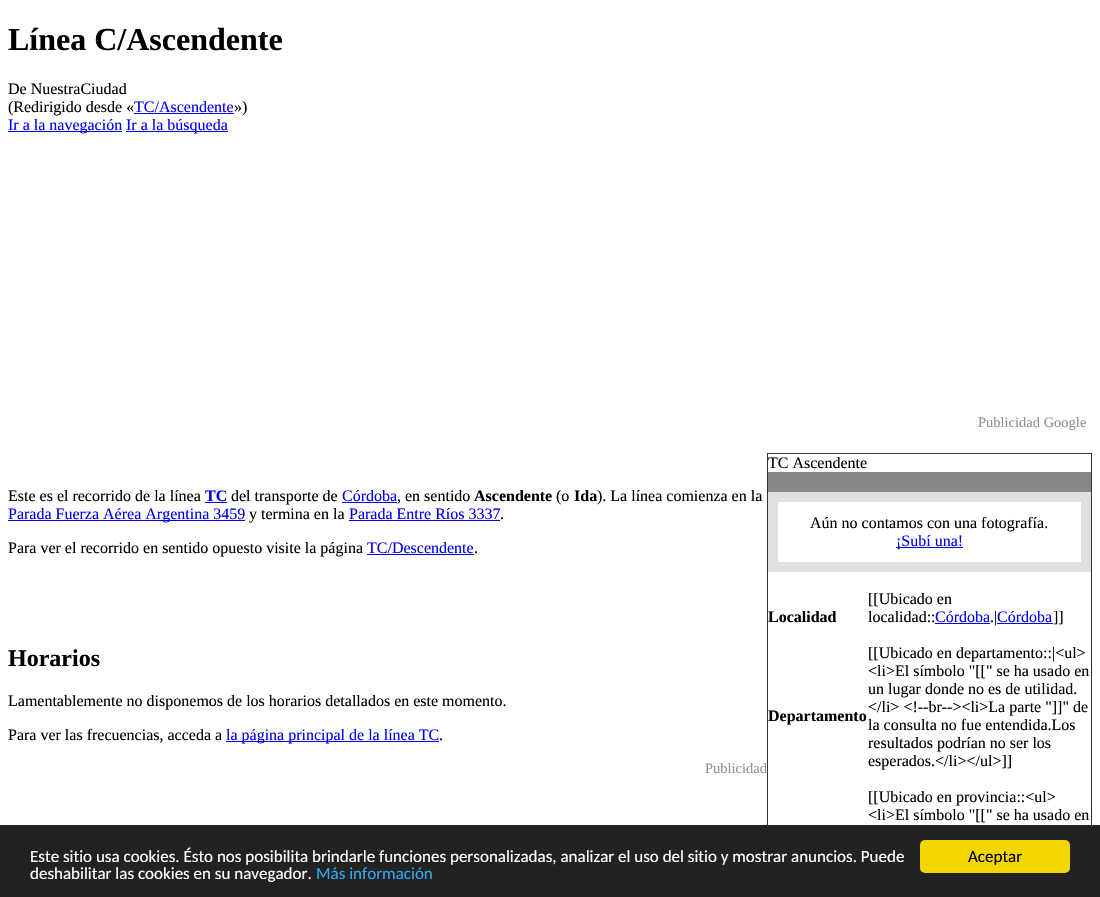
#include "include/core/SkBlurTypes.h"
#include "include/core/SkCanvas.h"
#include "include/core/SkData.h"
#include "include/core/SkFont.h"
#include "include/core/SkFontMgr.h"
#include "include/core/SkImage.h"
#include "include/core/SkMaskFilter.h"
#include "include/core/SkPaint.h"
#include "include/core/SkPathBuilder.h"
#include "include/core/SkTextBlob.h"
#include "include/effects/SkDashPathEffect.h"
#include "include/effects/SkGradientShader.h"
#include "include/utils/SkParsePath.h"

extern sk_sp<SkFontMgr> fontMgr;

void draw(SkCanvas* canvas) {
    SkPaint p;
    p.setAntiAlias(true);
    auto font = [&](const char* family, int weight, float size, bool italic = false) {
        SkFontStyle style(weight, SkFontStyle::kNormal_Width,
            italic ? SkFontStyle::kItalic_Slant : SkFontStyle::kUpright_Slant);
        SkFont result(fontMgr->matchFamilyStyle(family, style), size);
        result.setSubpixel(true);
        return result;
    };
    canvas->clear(0xFFFFFFFF);
    auto font1 = font("Liberation Serif", 700, 32);
    p.setColor(0xFF000000);
    canvas->drawString("Línea C/Ascendente", 8, 50, font1, p);
    auto font2 = font("Liberation Serif", 400, 16);
    canvas->drawString("De NuestraCiudad", 8, 94, font2, p);
    canvas->drawString("(Redirigido desde «", 8, 112, font2, p);
    p.setColor(0xFF0000EE);
    canvas->drawRect(SkRect::MakeLTRB(134, 113, 234, 114), p);
    canvas->drawString("TC/Ascendente", 134, 112, font2, p);
    p.setColor(0xFF000000);
    canvas->drawString("»)", 234, 112, font2, p);
    p.setColor(0xFF0000EE);
    canvas->drawRect(SkRect::MakeLTRB(8, 131, 122, 132), p);
    canvas->drawString("Ir a la navegación", 8, 130, font2, p);
    canvas->drawRect(SkRect::MakeLTRB(126, 131, 228, 132), p);
    canvas->drawString("Ir a la búsqueda", 126, 130, font2, p);
    auto font3 = font("Liberation Serif", 400, 14.5f);
    p.setColor(0xFF909090);
    canvas->drawString("Publicidad Google", 978, 427, font3, p);
    p.setColor(0xFF000000);
    canvas->drawString("Este es el recorrido de la línea", 8, 501, font2, p);
    auto font4 = font("Liberation Serif", 700, 16);
    p.setColor(0xFF0000EE);
    canvas->drawString("TC", 205, 501, font4, p);
    canvas->drawRect(SkRect::MakeLTRB(205, 502, 227, 503), p);
    p.setColor(0xFF000000);
    canvas->drawString("del transporte de", 231, 501, font2, p);
    p.setColor(0xFF0000EE);
    canvas->drawString("Córdoba", 342, 501, font2, p);
    canvas->drawRect(SkRect::MakeLTRB(342, 502, 397, 503), p);
    p.setColor(0xFF000000);
    canvas->drawString(", en sentido", 397, 501, font2, p);
    canvas->drawString("Ascendente", 474, 501, font4, p);
    canvas->drawString("(o", 556, 501, font2, p);
    canvas->drawString("Ida", 574, 501, font4, p);
    canvas->drawString("). La línea comienza en la", 597, 501, font2, p);
    p.setColor(0xFF0000EE);
    canvas->drawRect(SkRect::MakeLTRB(8, 520, 245, 521), p);
    canvas->drawString("Parada Fuerza Aérea Argentina 3459", 8, 519, font2, p);
    p.setColor(0xFF000000);
    canvas->drawString("y termina en la", 249, 519, font2, p);
    p.setColor(0xFF0000EE);
    canvas->drawString("Parada Entre Ríos 3337", 349, 519, font2, p);
    canvas->drawRect(SkRect::MakeLTRB(349, 520, 500, 521), p);
    p.setColor(0xFF000000);
    canvas->drawString(".", 500, 519, font2, p);
    p.setStyle(SkPaint::kStroke_Style);
    p.setStrokeWidth(1);
    p.setColor(0xFF333333);
    canvas->drawRect(SkRect::MakeLTRB(767.5f, 453.5f, 1091.5f, 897.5f), p);
    p.setStyle(SkPaint::kFill_Style);
    p.setColor(0xFF888888);
    canvas->drawRect(SkRect::MakeLTRB(768, 472, 1091, 492), p);
    p.setColor(0xFF000000);
    canvas->drawString("TC Ascendente", 768, 468, font2, p);
    p.setStyle(SkPaint::kStroke_Style);
    p.setStrokeWidth(10);
    p.setColor(0xFFDFDFDF);
    canvas->drawRect(SkRect::MakeLTRB(773, 497, 1086, 567), p);
    p.setStyle(SkPaint::kFill_Style);
    p.setColor(0xFF000000);
    canvas->drawString("Aún no contamos con una fotografía.", 810, 528, font2, p);
    p.setColor(0xFF0000EE);
    canvas->drawRect(SkRect::MakeLTRB(896, 547, 963, 548), p);
    canvas->drawString("¡Subí una!", 896, 546, font2, p);
    p.setColor(0xFF000000);
    canvas->drawString("Localidad", 768, 622, font4, p);
    canvas->drawString("[[Ubicado en", 868, 604, font2, p);
    canvas->drawString("localidad::", 868, 622, font2, p);
    p.setColor(0xFF0000EE);
    canvas->drawString("Córdoba", 935, 622, font2, p);
    canvas->drawRect(SkRect::MakeLTRB(935, 623, 990, 624), p);
    p.setColor(0xFF000000);
    canvas->drawString(".|", 990, 622, font2, p);
    p.setColor(0xFF0000EE);
    canvas->drawString("Córdoba", 997, 622, font2, p);
    canvas->drawRect(SkRect::MakeLTRB(997, 623, 1053, 624), p);
    p.setColor(0xFF000000);
    canvas->drawString("]]", 1053, 622, font2, p);
    canvas->drawString("Departamento", 768, 721, font4, p);
    {
        const struct { const char* s; float x, y; } items[] = {
            {"[[Ubicado en departamento::|<ul>", 868, 658},
            {"<li>El símbolo \"[[\" se ha usado en", 868, 676},
            {"un lugar donde no es de utilidad.", 868, 694},
            {"</li> <!--br--><li>La parte \"]]\" de", 868, 712},
            {"la consulta no fue entendida.Los", 868, 730},
            {"resultados podrían no ser los", 868, 748},
            {"esperados.</li></ul>]]", 868, 766},
            {"[[Ubicado en provincia::<ul>", 868, 802},
            {"<li>El símbolo \"[[\" se ha usado en", 868, 820},
            {"Para ver el recorrido en sentido opuesto visite la página", 8, 553},
        };
        for (auto [s, x, y] : items) {
            canvas->drawString(s, x, y, font2, p);
        }
    }
    p.setColor(0xFF0000EE);
    canvas->drawString("TC/Descendente", 367, 553, font2, p);
    canvas->drawRect(SkRect::MakeLTRB(367, 554, 474, 555), p);
    p.setColor(0xFF000000);
    canvas->drawString(".", 474, 553, font2, p);
    auto font5 = font("Liberation Serif", 700, 24);
    canvas->drawString("Horarios", 8, 666, font5, p);
    canvas->drawString("Lamentablemente no disponemos de los horarios detallados en este momento.", 8, 706, font2, p);
    canvas->drawString("Para ver las frecuencias, acceda a", 8, 740, font2, p);
    p.setColor(0xFF0000EE);
    canvas->drawRect(SkRect::MakeLTRB(226, 741, 439, 742), p);
    canvas->drawString("la página principal de la línea TC", 226, 740, font2, p);
    p.setColor(0xFF000000);
    canvas->drawString(".", 439, 740, font2, p);
    p.setColor(0xFF909090);
    canvas->drawString("Publicidad", 705, 773, font3, p);
    p.setColor(0xFF222222);
    canvas->drawRect(SkRect::MakeLTRB(0, 825, 1100, 897), p);
    auto font6 = font("Carlito", 400, 17);
    p.setColor(0xFFFFFFFF);
    canvas->drawString("Este sitio usa cookies. Ésto nos posibilita brindarle funciones personalizadas, analizar el uso del sitio y mostrar anuncios. Puede", 30, 862, font6, p);
    canvas->drawString("deshabilitar las cookies en su navegador.", 30, 879, font6, p);
    p.setColor(0xFF31A8F0);
    canvas->drawString("Más información", 316, 879, font6, p);
    p.setColor(0xFFF1D600);
    canvas->drawRoundRect(SkRect::MakeLTRB(920, 840, 1070, 873), 5, 5, p);
    p.setColor(0xFF000000);
    canvas->drawString("Aceptar", 968, 862, font6, p);
}
